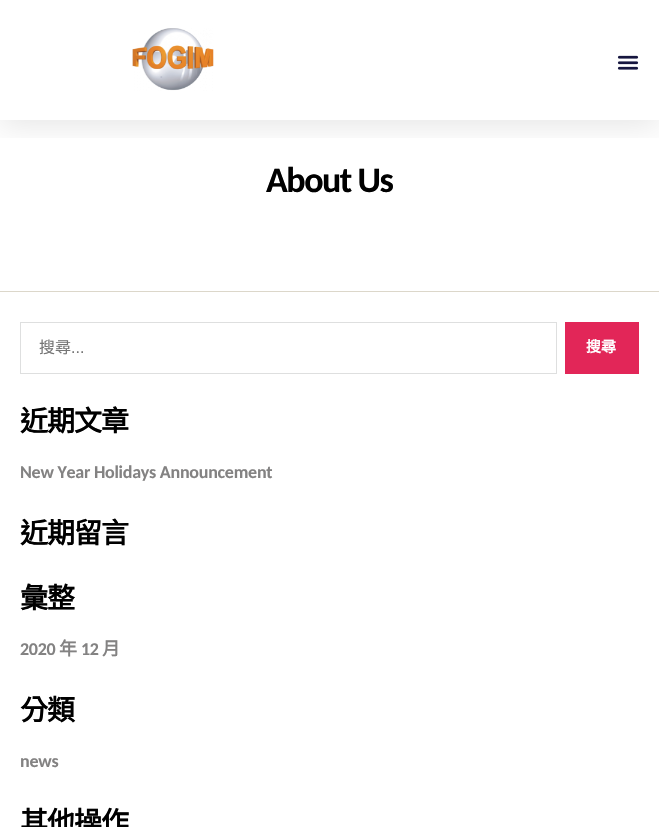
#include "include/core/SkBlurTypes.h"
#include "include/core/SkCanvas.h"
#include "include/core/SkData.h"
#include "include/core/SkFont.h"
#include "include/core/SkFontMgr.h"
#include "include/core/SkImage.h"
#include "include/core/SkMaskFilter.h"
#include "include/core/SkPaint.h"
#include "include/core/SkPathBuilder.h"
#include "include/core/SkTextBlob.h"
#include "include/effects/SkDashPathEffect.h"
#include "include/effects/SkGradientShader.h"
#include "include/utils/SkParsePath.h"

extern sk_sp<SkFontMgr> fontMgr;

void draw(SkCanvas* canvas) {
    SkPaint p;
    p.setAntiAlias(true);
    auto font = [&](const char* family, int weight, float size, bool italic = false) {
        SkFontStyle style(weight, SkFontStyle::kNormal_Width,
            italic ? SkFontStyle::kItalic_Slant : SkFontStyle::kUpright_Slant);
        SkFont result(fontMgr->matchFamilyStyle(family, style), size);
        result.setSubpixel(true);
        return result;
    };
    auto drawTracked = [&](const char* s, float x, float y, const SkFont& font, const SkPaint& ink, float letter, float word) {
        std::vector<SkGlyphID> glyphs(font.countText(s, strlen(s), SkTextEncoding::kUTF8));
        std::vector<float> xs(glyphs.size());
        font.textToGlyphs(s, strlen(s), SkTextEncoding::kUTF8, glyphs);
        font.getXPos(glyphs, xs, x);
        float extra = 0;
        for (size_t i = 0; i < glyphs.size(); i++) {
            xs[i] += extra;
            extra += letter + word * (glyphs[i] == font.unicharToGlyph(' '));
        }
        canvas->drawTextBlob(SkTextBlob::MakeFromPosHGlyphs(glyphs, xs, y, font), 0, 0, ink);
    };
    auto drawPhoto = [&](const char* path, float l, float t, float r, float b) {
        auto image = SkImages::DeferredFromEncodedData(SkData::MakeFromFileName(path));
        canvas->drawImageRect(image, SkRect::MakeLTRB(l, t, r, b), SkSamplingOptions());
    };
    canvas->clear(0xFFFFFFFF);
    canvas->save();
    canvas->clipRect(SkRect::MakeLTRB(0, 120, 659, 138));
    p.setColor(0x1A000000);
    p.setMaskFilter(SkMaskFilter::MakeBlur(kNormal_SkBlurStyle, 15));
    canvas->drawRect(SkRect::MakeLTRB(0, 5, 659, 125), p);
    p.setMaskFilter(nullptr);
    canvas->restore();
    drawPhoto("media/1.png", 132, 28, 214, 91);
    drawPhoto("media/2.png", 617, 55, 639, 70);
    auto font1 = font("Carlito", 700, 36);
    p.setColor(0xFF000000);
    drawTracked("About Us", 266, 192, font1, p, -1.5f, 0);
    p.setColor(0xFFDCD7CA);
    canvas->drawRect(SkRect::MakeLTRB(0, 291, 659, 292), p);
    p.setStyle(SkPaint::kStroke_Style);
    p.setStrokeWidth(1);
    p.setColor(0xFFDEDFDF);
    canvas->drawRect(SkRect::MakeLTRB(20.5f, 322.5f, 556.5f, 373.5f), p);
    auto font2 = font("Noto Sans CJK TC", 400, 16);
    p.setStyle(SkPaint::kFill_Style);
    p.setColor(0xFF757575);
    canvas->drawString("搜尋", 39, 353, font2, p);
    auto font3 = font("Liberation Sans", 400, 16);
    canvas->drawString("...", 71, 353, font3, p);
    p.setColor(0xFFE22658);
    canvas->drawRect(SkRect::MakeLTRB(565, 322, 639, 374), p);
    auto font4 = font("Noto Sans CJK TC", 700, 15);
    p.setColor(0xFFFFFFFF);
    canvas->drawString("搜尋", 586, 352, font4, p);
    auto font5 = font("Noto Sans CJK TC", 700, 28);
    p.setColor(0xFF000000);
    drawTracked("近期文章", 20, 431, font5, p, -1, 0);
    auto font6 = font("Carlito", 700, 18);
    p.setColor(0xFF838282);
    drawTracked("New Year Holidays Announcement", 20, 478, font6, p, -0.25f, 0);
    p.setColor(0xFF000000);
    drawTracked("近期留言", 20, 543, font5, p, -1, 0);
    drawTracked("彙整", 20, 608, font5, p, -1, 0);
    p.setColor(0xFF838282);
    drawTracked("2020", 20, 655, font6, p, -0.25f, 0);
    auto font7 = font("Noto Sans CJK TC", 700, 18);
    drawTracked("年", 59, 655, font7, p, -0.25f, 0);
    drawTracked("12", 81, 655, font6, p, -0.25f, 0);
    drawTracked("月", 102, 655, font7, p, -0.25f, 0);
    p.setColor(0xFF000000);
    drawTracked("分類", 20, 720, font5, p, -1, 0);
    p.setColor(0xFF838282);
    drawTracked("news", 20, 767, font6, p, -0.25f, 0);
    p.setColor(0xFF000000);
    drawTracked("其他操作", 20, 832, font5, p, -1, 0);
}
